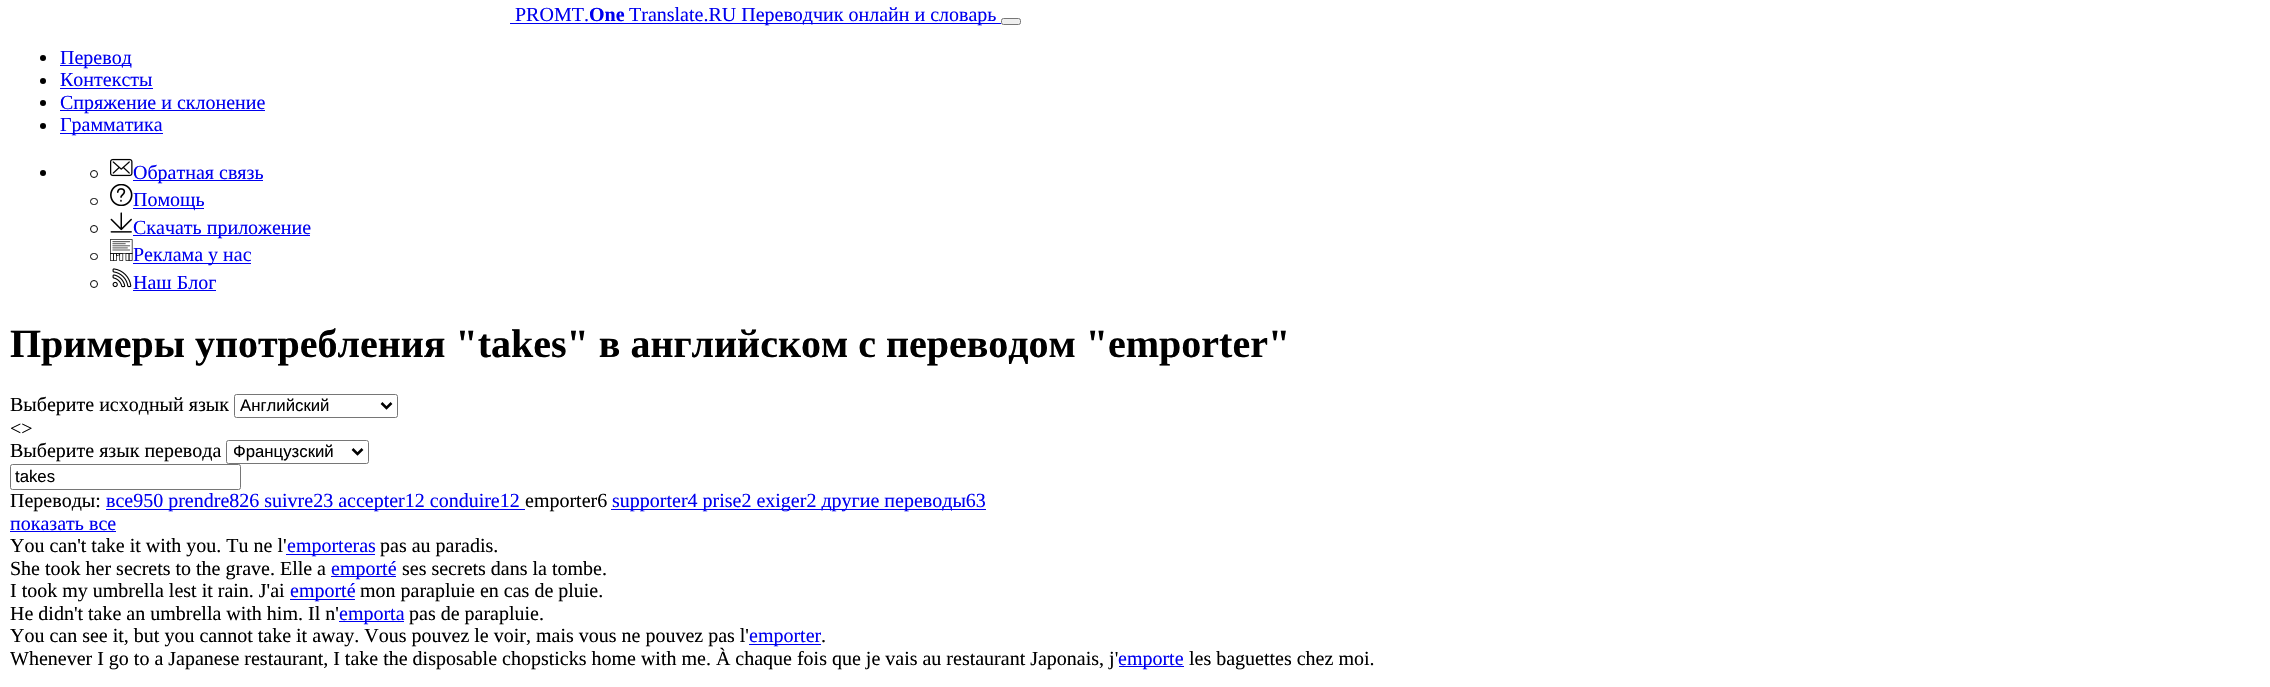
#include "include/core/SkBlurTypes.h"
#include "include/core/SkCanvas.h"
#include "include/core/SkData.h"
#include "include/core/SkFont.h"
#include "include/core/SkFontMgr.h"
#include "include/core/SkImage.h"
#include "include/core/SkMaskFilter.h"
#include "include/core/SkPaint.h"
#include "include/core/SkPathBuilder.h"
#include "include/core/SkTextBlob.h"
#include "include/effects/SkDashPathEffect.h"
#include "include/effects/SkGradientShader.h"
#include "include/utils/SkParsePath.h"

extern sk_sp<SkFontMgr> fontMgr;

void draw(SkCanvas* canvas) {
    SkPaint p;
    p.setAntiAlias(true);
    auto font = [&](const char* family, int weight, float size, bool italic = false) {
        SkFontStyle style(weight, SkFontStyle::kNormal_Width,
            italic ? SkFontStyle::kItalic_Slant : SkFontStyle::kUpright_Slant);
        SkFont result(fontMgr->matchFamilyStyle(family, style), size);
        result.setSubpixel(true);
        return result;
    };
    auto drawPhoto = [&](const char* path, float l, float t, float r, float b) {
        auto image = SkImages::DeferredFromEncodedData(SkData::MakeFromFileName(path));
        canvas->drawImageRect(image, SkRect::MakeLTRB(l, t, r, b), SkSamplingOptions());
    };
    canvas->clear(0xFFFFFFFF);
    auto font1 = font("Liberation Serif", 400, 20);
    p.setColor(0xFF0000EE);
    canvas->drawString("PROMT.", 515, 21, font1, p);
    auto font2 = font("Liberation Serif", 700, 20);
    canvas->drawString("One", 589, 21, font2, p);
    canvas->drawRect(SkRect::MakeLTRB(510, 23, 1001, 24), p);
    canvas->drawString("Translate.RU Переводчик онлайн и словарь", 629, 21, font1, p);
    p.setColor(0xFFEFEFEF);
    canvas->drawRoundRect(SkRect::MakeLTRB(1001.5f, 18.5f, 1020.5f, 24.5f), 2, 2, p);
    p.setStyle(SkPaint::kStroke_Style);
    p.setStrokeWidth(1);
    p.setColor(0xFF767676);
    canvas->drawRoundRect(SkRect::MakeLTRB(1001.5f, 18.5f, 1020.5f, 24.5f), 2, 2, p);
    p.setStyle(SkPaint::kFill_Style);
    p.setColor(0xFF000000);
    canvas->drawCircle(43, 58, 3, p);
    p.setColor(0xFF0000EE);
    canvas->drawRect(SkRect::MakeLTRB(60, 65, 131, 66), p);
    canvas->drawString("Перевод", 60, 64, font1, p);
    p.setColor(0xFF000000);
    canvas->drawCircle(43, 81, 3, p);
    p.setColor(0xFF0000EE);
    canvas->drawString("Контексты", 60, 86, font1, p);
    canvas->drawRect(SkRect::MakeLTRB(60, 88, 153, 89), p);
    p.setColor(0xFF000000);
    canvas->drawCircle(43, 103, 3, p);
    p.setColor(0xFF0000EE);
    canvas->drawRect(SkRect::MakeLTRB(60, 110, 265, 111), p);
    canvas->drawString("Спряжение и склонение", 60, 109, font1, p);
    p.setColor(0xFF000000);
    canvas->drawCircle(43, 126, 3, p);
    p.setColor(0xFF0000EE);
    canvas->drawRect(SkRect::MakeLTRB(60, 133, 163, 134), p);
    canvas->drawString("Грамматика", 60, 131, font1, p);
    p.setColor(0xFF000000);
    canvas->drawCircle(43, 173, 3, p);
    p.setStyle(SkPaint::kStroke_Style);
    canvas->drawCircle(94, 174, 3.5f, p);
    drawPhoto("media/1.png", 110, 158, 133, 177);
    p.setStyle(SkPaint::kFill_Style);
    p.setColor(0xFF0000EE);
    canvas->drawRect(SkRect::MakeLTRB(133, 180, 263, 181), p);
    canvas->drawString("Обратная связь", 133, 179, font1, p);
    p.setStyle(SkPaint::kStroke_Style);
    p.setColor(0xFF000000);
    canvas->drawRoundRect(SkRect::MakeLTRB(90.5f, 198.5f, 97.5f, 204.5f), 3, 3, p);
    drawPhoto("media/2.png", 110, 184, 133, 206);
    p.setStyle(SkPaint::kFill_Style);
    p.setColor(0xFF0000EE);
    canvas->drawRect(SkRect::MakeLTRB(133, 208, 204, 209), p);
    canvas->drawString("Помощь", 133, 206, font1, p);
    p.setStyle(SkPaint::kStroke_Style);
    p.setColor(0xFF000000);
    canvas->drawCircle(94, 229, 3.5f, p);
    drawPhoto("media/3.png", 110, 212, 132, 233);
    p.setStyle(SkPaint::kFill_Style);
    p.setColor(0xFF0000EE);
    canvas->drawRect(SkRect::MakeLTRB(133, 235, 310, 236), p);
    canvas->drawString("Скачать приложение", 133, 234, font1, p);
    p.setStyle(SkPaint::kStroke_Style);
    p.setColor(0xFF000000);
    canvas->drawRoundRect(SkRect::MakeLTRB(90.5f, 253.5f, 97.5f, 259.5f), 3, 3, p);
    drawPhoto("media/4.png", 110, 239, 133, 261);
    p.setStyle(SkPaint::kFill_Style);
    p.setColor(0xFF0000EE);
    canvas->drawRect(SkRect::MakeLTRB(133, 263, 251, 264), p);
    canvas->drawString("Реклама у нас", 133, 261, font1, p);
    p.setStyle(SkPaint::kStroke_Style);
    p.setColor(0xFF000000);
    canvas->drawCircle(94, 284, 3.5f, p);
    drawPhoto("media/5.png", 112, 268, 132, 288);
    p.setStyle(SkPaint::kFill_Style);
    p.setColor(0xFF0000EE);
    canvas->drawString("Наш Блог", 133, 289, font1, p);
    canvas->drawRect(SkRect::MakeLTRB(133, 290, 216, 291), p);
    auto font3 = font("Liberation Serif", 700, 40);
    p.setColor(0xFF000000);
    canvas->drawString("Примеры употребления \"takes\" в английском с переводом \"emporter\"", 10, 357, font3, p);
    canvas->drawString("Выберите исходный язык", 10, 411, font1, p);
    p.setStyle(SkPaint::kStroke_Style);
    p.setColor(0xFF767676);
    canvas->drawRoundRect(SkRect::MakeLTRB(234.5f, 394.5f, 397.5f, 417.5f), 2, 2, p);
    p.setStrokeWidth(2.5f);
    p.setColor(0xFF000000);
    canvas->drawPath(SkPathBuilder().moveTo(381.5f, 403).lineTo(386.5f, 408).lineTo(391.5f, 403).detach(), p);
    auto font4 = font("Liberation Sans", 400, 16.75f);
    p.setStyle(SkPaint::kFill_Style);
    canvas->drawString("Английский", 240, 411, font4, p);
    canvas->drawString("<>", 10, 435, font1, p);
    canvas->drawString("Выберите язык перевода", 10, 457, font1, p);
    p.setStyle(SkPaint::kStroke_Style);
    p.setStrokeWidth(1);
    p.setColor(0xFF767676);
    canvas->drawRoundRect(SkRect::MakeLTRB(226.5f, 440.5f, 368.5f, 463.5f), 2, 2, p);
    p.setStrokeWidth(2.5f);
    p.setColor(0xFF000000);
    canvas->drawPath(SkPathBuilder().moveTo(352.5f, 449).lineTo(357.5f, 454).lineTo(362.5f, 449).detach(), p);
    p.setStyle(SkPaint::kFill_Style);
    canvas->drawString("Французский", 233, 457, font4, p);
    p.setStyle(SkPaint::kStroke_Style);
    p.setStrokeWidth(1);
    p.setColor(0xFF767676);
    canvas->drawRoundRect(SkRect::MakeLTRB(10.5f, 464.5f, 240.5f, 489.5f), 2, 2, p);
    p.setStyle(SkPaint::kFill_Style);
    p.setColor(0xFF000000);
    canvas->drawString("takes", 15, 482, font4, p);
    canvas->drawString("Переводы:", 10, 507, font1, p);
    p.setColor(0xFF0000EE);
    canvas->drawRect(SkRect::MakeLTRB(106, 509, 525, 510), p);
    canvas->drawString("все950 prendre826 suivre23 accepter12 conduire12", 106, 507, font1, p);
    p.setColor(0xFF000000);
    canvas->drawString("emporter6", 525, 507, font1, p);
    p.setColor(0xFF0000EE);
    canvas->drawRect(SkRect::MakeLTRB(611, 509, 986, 510), p);
    canvas->drawString("supporter4 prise2 exiger2 другие переводы63", 612, 507, font1, p);
    canvas->drawString("показать все", 10, 530, font1, p);
    canvas->drawRect(SkRect::MakeLTRB(10, 531, 116, 532), p);
    p.setColor(0xFF000000);
    canvas->drawString("You can't take it with you. Tu ne l'", 10, 552, font1, p);
    p.setColor(0xFF0000EE);
    canvas->drawRect(SkRect::MakeLTRB(286, 554, 375, 555), p);
    canvas->drawString("emporteras", 287, 552, font1, p);
    p.setColor(0xFF000000);
    canvas->drawString("pas au paradis.", 380, 552, font1, p);
    canvas->drawString("She took her secrets to the grave. Elle a", 10, 575, font1, p);
    p.setColor(0xFF0000EE);
    canvas->drawRect(SkRect::MakeLTRB(331, 576, 396, 577), p);
    canvas->drawString("emporté", 331, 575, font1, p);
    p.setColor(0xFF000000);
    canvas->drawString("ses secrets dans la tombe.", 402, 575, font1, p);
    canvas->drawString("I took my umbrella lest it rain. J'ai", 10, 597, font1, p);
    p.setColor(0xFF0000EE);
    canvas->drawRect(SkRect::MakeLTRB(290, 599, 355, 600), p);
    canvas->drawString("emporté", 290, 597, font1, p);
    p.setColor(0xFF000000);
    canvas->drawString("mon parapluie en cas de pluie.", 360, 597, font1, p);
    canvas->drawString("He didn't take an umbrella with him. Il n'", 10, 620, font1, p);
    p.setColor(0xFF0000EE);
    canvas->drawRect(SkRect::MakeLTRB(339, 621, 404, 622), p);
    canvas->drawString("emporta", 339, 620, font1, p);
    p.setColor(0xFF000000);
    canvas->drawString("pas de parapluie.", 409, 620, font1, p);
    canvas->drawString("You can see it, but you cannot take it away. Vous pouvez le voir, mais vous ne pouvez pas l'", 10, 642, font1, p);
    p.setColor(0xFF0000EE);
    canvas->drawRect(SkRect::MakeLTRB(749, 644, 821, 645), p);
    canvas->drawString("emporter", 749, 642, font1, p);
    p.setColor(0xFF000000);
    canvas->drawString(".", 821, 642, font1, p);
    canvas->drawString("Whenever I go to a Japanese restaurant, I take the disposable chopsticks home with me. À chaque fois que je vais au restaurant Japonais, j'", 10, 665, font1, p);
    p.setColor(0xFF0000EE);
    canvas->drawRect(SkRect::MakeLTRB(1119, 666, 1184, 667), p);
    canvas->drawString("emporte", 1118, 665, font1, p);
    p.setColor(0xFF000000);
    canvas->drawString("les baguettes chez moi.", 1189, 665, font1, p);
}
